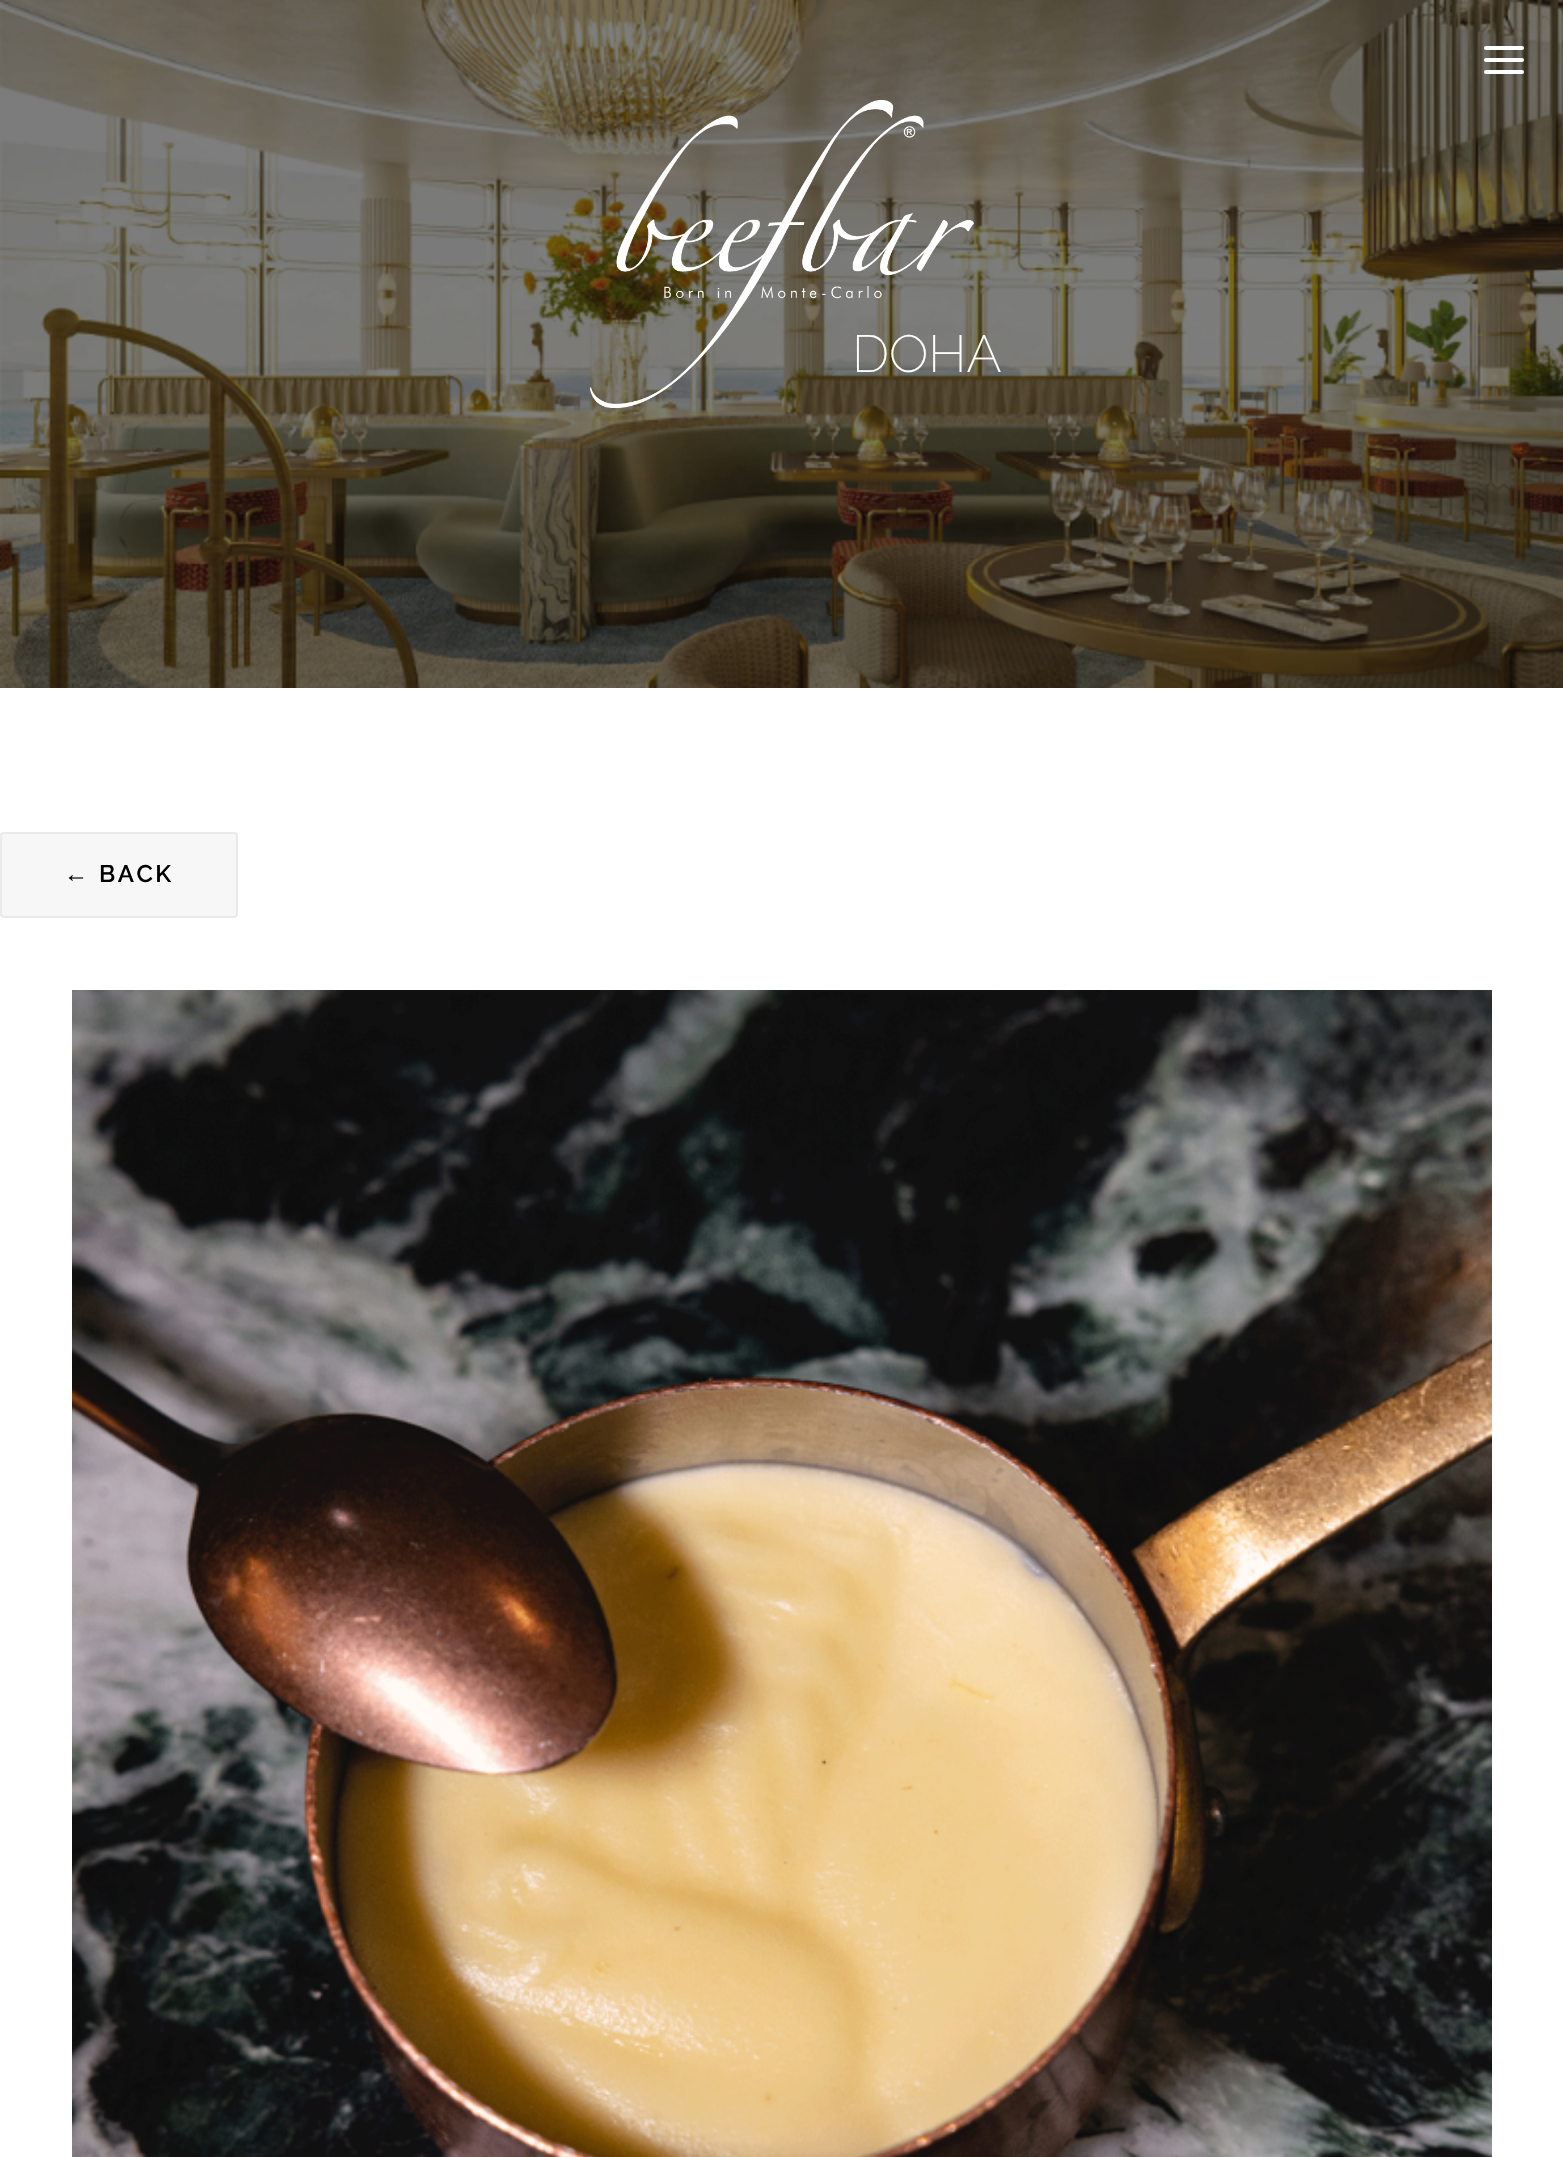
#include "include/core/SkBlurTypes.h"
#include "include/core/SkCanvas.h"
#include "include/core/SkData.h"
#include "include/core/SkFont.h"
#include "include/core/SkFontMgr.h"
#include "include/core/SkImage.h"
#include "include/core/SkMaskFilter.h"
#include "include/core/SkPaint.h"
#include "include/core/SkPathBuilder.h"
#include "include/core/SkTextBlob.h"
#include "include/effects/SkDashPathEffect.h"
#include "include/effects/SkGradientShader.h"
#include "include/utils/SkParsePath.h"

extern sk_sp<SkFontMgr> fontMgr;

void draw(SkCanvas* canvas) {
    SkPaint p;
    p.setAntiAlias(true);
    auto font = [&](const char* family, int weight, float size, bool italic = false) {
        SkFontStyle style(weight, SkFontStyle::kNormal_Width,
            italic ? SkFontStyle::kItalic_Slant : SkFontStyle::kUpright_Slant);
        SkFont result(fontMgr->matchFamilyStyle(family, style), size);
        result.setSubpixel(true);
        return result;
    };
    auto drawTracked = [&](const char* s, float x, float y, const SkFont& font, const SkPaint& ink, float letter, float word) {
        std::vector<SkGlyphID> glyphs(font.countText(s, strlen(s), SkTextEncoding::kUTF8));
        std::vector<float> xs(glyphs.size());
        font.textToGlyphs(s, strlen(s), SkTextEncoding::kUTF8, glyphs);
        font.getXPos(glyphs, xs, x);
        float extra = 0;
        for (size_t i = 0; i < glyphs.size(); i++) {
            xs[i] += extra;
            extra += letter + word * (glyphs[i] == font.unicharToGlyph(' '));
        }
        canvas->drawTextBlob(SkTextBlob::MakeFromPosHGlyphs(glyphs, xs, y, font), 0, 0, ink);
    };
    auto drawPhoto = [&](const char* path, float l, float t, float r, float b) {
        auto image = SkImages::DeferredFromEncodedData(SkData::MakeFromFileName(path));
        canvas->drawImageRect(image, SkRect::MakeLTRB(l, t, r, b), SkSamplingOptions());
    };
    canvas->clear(0xFFFFFFFF);
    drawPhoto("media/1.png", 0, 0, 1563, 688);
    p.setColor(0xFFFFFFFF);
    canvas->drawRoundRect(SkRect::MakeLTRB(1484, 58, 1524, 62), 2, 2, p);
    canvas->drawRoundRect(SkRect::MakeLTRB(1484, 46, 1524, 50), 2, 2, p);
    canvas->drawRoundRect(SkRect::MakeLTRB(1484, 70, 1524, 74), 2, 2, p);
    drawPhoto("media/2.png", 590, 100, 974, 408);
    auto font1 = font("Raleway", 100, 52);
    canvas->drawString("DOHA", 852, 372, font1, p);
    p.setColor(0xFFF7F7F7);
    canvas->drawRoundRect(SkRect::MakeLTRB(1, 833, 237, 917), 3, 3, p);
    p.setStyle(SkPaint::kStroke_Style);
    p.setStrokeWidth(2);
    p.setColor(0xFFEAEAEA);
    canvas->drawRoundRect(SkRect::MakeLTRB(1, 833, 237, 917), 3, 3, p);
    auto font2 = font("Liberation Serif", 700, 24);
    p.setStyle(SkPaint::kFill_Style);
    p.setColor(0xFF000000);
    drawTracked("←", 64, 882, font2, p, 2.5f, 0);
    auto font3 = font("Raleway", 600, 24);
    drawTracked("BACK", 99, 882, font3, p, 2.5f, 0);
    drawPhoto("media/3.png", 72, 990, 1492, 2157);
}
